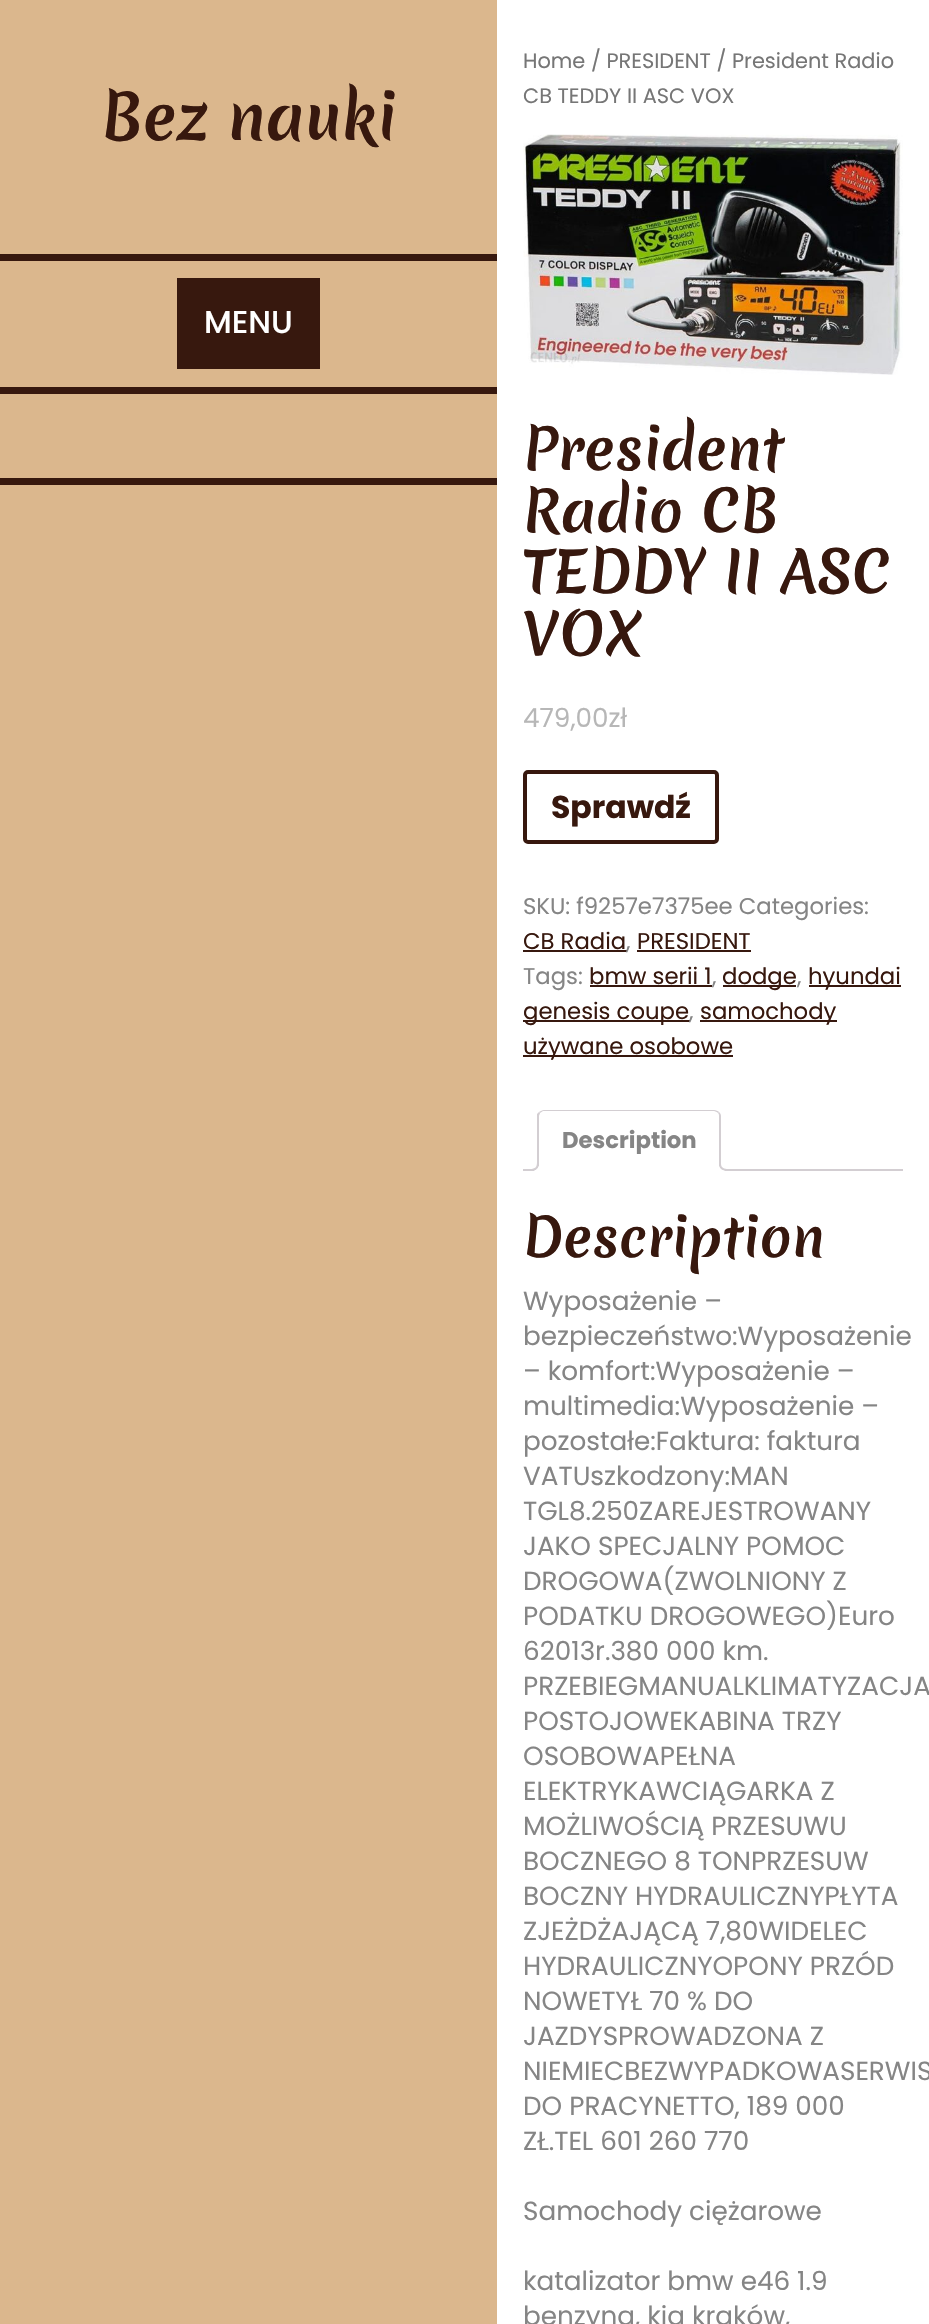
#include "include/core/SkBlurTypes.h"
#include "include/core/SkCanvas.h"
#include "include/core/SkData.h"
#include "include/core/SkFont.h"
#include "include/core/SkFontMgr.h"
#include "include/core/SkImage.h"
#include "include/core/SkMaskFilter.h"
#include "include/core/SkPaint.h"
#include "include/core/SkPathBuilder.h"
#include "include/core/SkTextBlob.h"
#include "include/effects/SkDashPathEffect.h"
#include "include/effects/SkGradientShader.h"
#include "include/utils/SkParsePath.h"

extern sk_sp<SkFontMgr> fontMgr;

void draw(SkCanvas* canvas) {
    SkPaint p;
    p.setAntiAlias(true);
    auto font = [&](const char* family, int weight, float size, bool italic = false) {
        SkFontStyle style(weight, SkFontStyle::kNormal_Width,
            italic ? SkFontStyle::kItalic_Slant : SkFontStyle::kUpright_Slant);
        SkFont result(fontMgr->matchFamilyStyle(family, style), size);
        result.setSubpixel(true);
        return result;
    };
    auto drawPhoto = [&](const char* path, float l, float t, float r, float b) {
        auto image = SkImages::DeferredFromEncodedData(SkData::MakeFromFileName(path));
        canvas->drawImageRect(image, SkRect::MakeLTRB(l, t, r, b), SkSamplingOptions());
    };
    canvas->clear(0xFFFFFFFF);
    p.setColor(0xFFDBB78D);
    canvas->drawRect(SkRect::MakeLTRB(0, 0, 497, 2324), p);
    p.setColor(0xFF37180E);
    canvas->drawRect(SkRect::MakeLTRB(0, 254, 497, 261), p);
    auto font1 = font("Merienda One", 400, 61.25f);
    canvas->drawString("Bez nauki", 101, 140, font1, p);
    canvas->drawRect(SkRect::MakeLTRB(177, 278, 320, 369), p);
    auto font2 = font("Poppins", 500, 31.5f);
    p.setColor(0xFFFFFFFF);
    canvas->drawString("MENU", 204, 333, font2, p);
    p.setColor(0xFF37180E);
    canvas->drawRect(SkRect::MakeLTRB(0, 387, 497, 394), p);
    canvas->drawRect(SkRect::MakeLTRB(0, 478, 497, 485), p);
    auto font3 = font("Poppins", 400, 20.9f);
    p.setColor(0xFF767676);
    canvas->drawString("Home / PRESIDENT / President Radio", 523, 68, font3, p);
    canvas->drawString("CB TEDDY II ASC VOX", 523, 103, font3, p);
    drawPhoto("media/1.png", 523, 134, 903, 375);
    auto font4 = font("Merienda One", 400, 56);
    p.setColor(0xFF37180E);
    {
        const struct { const char* s; float x, y; } items[] = {
            {"President", 523, 470},
            {"Radio CB", 523, 532},
            {"TEDDY II ASC", 523, 593},
            {"VOX", 523, 655},
        };
        for (auto [s, x, y] : items) {
            canvas->drawString(s, x, y, font4, p);
        }
    }
    auto font5 = font("Poppins", 400, 26.25f);
    p.setColor(0xFFB7B7B7);
    canvas->drawString("479,00zł", 523, 727, font5, p);
    p.setStyle(SkPaint::kStroke_Style);
    p.setStrokeWidth(4);
    p.setColor(0xFF37180E);
    canvas->drawRoundRect(SkRect::MakeLTRB(525, 772, 717, 842), 3, 3, p);
    auto font6 = font("Poppins", 700, 31.5f);
    p.setStyle(SkPaint::kFill_Style);
    canvas->drawString("Sprawdź", 551, 818, font6, p);
    auto font7 = font("Poppins", 400, 22.75f);
    p.setColor(0xFF858585);
    canvas->drawString("SKU: f9257e7375ee Categories:", 523, 914, font7, p);
    p.setColor(0xFF37180E);
    canvas->drawString("CB Radia", 523, 949, font7, p);
    canvas->drawRect(SkRect::MakeLTRB(523, 950, 627, 952), p);
    p.setColor(0xFF858585);
    canvas->drawString(",", 626, 949, font7, p);
    p.setColor(0xFF37180E);
    canvas->drawRect(SkRect::MakeLTRB(637, 950, 751, 952), p);
    canvas->drawString("PRESIDENT", 637, 949, font7, p);
    p.setColor(0xFF858585);
    canvas->drawString("Tags:", 523, 984, font7, p);
    p.setColor(0xFF37180E);
    canvas->drawString("bmw serii 1", 589, 984, font7, p);
    canvas->drawRect(SkRect::MakeLTRB(590, 985, 712, 987), p);
    p.setColor(0xFF858585);
    canvas->drawString(",", 712, 984, font7, p);
    p.setColor(0xFF37180E);
    canvas->drawRect(SkRect::MakeLTRB(723, 985, 796, 987), p);
    canvas->drawString("dodge", 722, 984, font7, p);
    p.setColor(0xFF858585);
    canvas->drawString(",", 797, 984, font7, p);
    p.setColor(0xFF37180E);
    canvas->drawRect(SkRect::MakeLTRB(809, 985, 901, 987), p);
    canvas->drawString("hyundai", 808, 984, font7, p);
    canvas->drawRect(SkRect::MakeLTRB(523, 1020, 690, 1022), p);
    canvas->drawString("genesis coupe", 523, 1019, font7, p);
    p.setColor(0xFF858585);
    canvas->drawString(",", 689, 1019, font7, p);
    p.setColor(0xFF37180E);
    canvas->drawRect(SkRect::MakeLTRB(700, 1020, 837, 1022), p);
    canvas->drawString("samochody", 700, 1019, font7, p);
    canvas->drawRect(SkRect::MakeLTRB(523, 1055, 733, 1057), p);
    canvas->drawString("używane osobowe", 523, 1054, font7, p);
    p.setColor(0xFFD3CED2);
    canvas->drawRect(SkRect::MakeLTRB(523, 1169, 903, 1171), p);
    p.setColor(0xFFFFFFFF);
    canvas->drawPath(SkPathBuilder().moveTo(544, 1110).lineTo(714, 1110).cubicTo(718, 1110, 721, 1113, 721, 1117).lineTo(721, 1171).lineTo(537, 1171).lineTo(537, 1117).cubicTo(537, 1113, 540, 1110, 544, 1110).close().detach(), p);
    p.setColor(0xFFD3CED2);
    canvas->drawPath(SkPathBuilder().moveTo(544, 1110).cubicTo(542, 1110, 541, 1111, 539, 1112).lineTo(540, 1113).lineTo(543, 1111).lineTo(714, 1111).cubicTo(715, 1111, 717, 1112, 718, 1113).lineTo(719, 1112).cubicTo(718, 1111, 716, 1110, 714, 1110).close().detach(), p);
    canvas->drawPath(SkPathBuilder().moveTo(719, 1112).cubicTo(720, 1113, 721, 1114, 721, 1116).lineTo(721, 1171).lineTo(719, 1169).lineTo(719, 1116).cubicTo(719, 1115, 719, 1114, 718, 1113).close().detach(), p);
    p.setColor(0xFFFFFFFF);
    canvas->drawPath(SkPathBuilder().moveTo(721, 1171).lineTo(719, 1169).lineTo(539, 1169).lineTo(537, 1171).close().detach(), p);
    p.setColor(0xFFD3CED2);
    canvas->drawPath(SkPathBuilder().moveTo(537, 1171).lineTo(539, 1169).lineTo(539, 1116).cubicTo(539, 1115, 540, 1114, 540, 1113).lineTo(539, 1112).lineTo(537, 1114).close().detach(), p);
    auto font8 = font("Poppins", 700, 22.75f);
    p.setColor(0xFF858585);
    canvas->drawString("Description", 562, 1148, font8, p);
    canvas->save();
    canvas->clipRect(SkRect::MakeLTRB(523, 1110, 903, 1171));
    p.setColor(0xFFFFFFFF);
    canvas->drawPath(SkPathBuilder().moveTo(534, 1170.5f).lineTo(534, 1174).cubicTo(539.5f, 1174, 543, 1172, 543, 1166).lineTo(538.5f, 1166).cubicTo(538, 1168, 536, 1170, 534, 1170.5f).close().detach(), p);
    canvas->restore();
    p.setColor(0xFFD3CED2);
    canvas->drawPath(SkPathBuilder(SkPathFillType::kEvenOdd).moveTo(530, 1162).lineTo(539, 1162).cubicTo(539, 1168, 536.5f, 1171, 530, 1171).close().moveTo(530, 1162).lineTo(537, 1162).cubicTo(537, 1167, 535.5f, 1169, 530, 1169).close().detach(), p);
    canvas->save();
    canvas->clipRect(SkRect::MakeLTRB(523, 1110, 903, 1171));
    p.setColor(0xFFFFFFFF);
    canvas->drawPath(SkPathBuilder().moveTo(716, 1166).cubicTo(716, 1172, 719.5f, 1174, 725, 1174).lineTo(725, 1170.5f).cubicTo(722.5f, 1170, 720.5f, 1168.5f, 719.5f, 1166).close().detach(), p);
    canvas->restore();
    p.setColor(0xFFD3CED2);
    canvas->drawPath(SkPathBuilder(SkPathFillType::kEvenOdd).moveTo(719, 1162).lineTo(728, 1162).lineTo(728, 1171).cubicTo(723.5f, 1171, 719, 1169, 719, 1164).close().moveTo(721, 1162).lineTo(728, 1162).lineTo(728, 1169).cubicTo(724.5f, 1169, 721, 1168, 721, 1164).close().detach(), p);
    auto font9 = font("Merienda One", 400, 52.5f);
    p.setColor(0xFF37180E);
    canvas->drawString("Description", 523, 1257, font9, p);
    p.setColor(0xFF858585);
    {
        const struct { const char* s; float x, y; } items[] = {
            {"Wyposażenie –", 523, 1310},
            {"bezpieczeństwo:Wyposażenie", 523, 1345},
            {"– komfort:Wyposażenie –", 523, 1380},
            {"multimedia:Wyposażenie –", 523, 1415},
            {"pozostałe:Faktura: faktura", 523, 1450},
            {"VATUszkodzony:MAN", 523, 1485},
            {"TGL8.250ZAREJESTROWANY", 523, 1520},
            {"JAKO SPECJALNY POMOC", 523, 1555},
            {"DROGOWA(ZWOLNIONY Z", 523, 1590},
            {"PODATKU DROGOWEGO)Euro", 523, 1625},
            {"62013r.380 000 km.", 523, 1660},
            {"PRZEBIEGMANUALKLIMATYZACJA", 523, 1695},
            {"POSTOJOWEKABINA TRZY", 523, 1730},
            {"OSOBOWAPEŁNA", 523, 1765},
            {"ELEKTRYKAWCIĄGARKA Z", 523, 1800},
            {"MOŻLIWOŚCIĄ PRZESUWU", 523, 1835},
            {"BOCZNEGO 8 TONPRZESUW", 523, 1870},
            {"BOCZNY HYDRAULICZNYPŁYTA", 523, 1905},
            {"ZJEŻDŻAJĄCĄ 7,80WIDELEC", 523, 1940},
            {"HYDRAULICZNYOPONY PRZÓD", 523, 1975},
            {"NOWETYŁ 70 % DO", 523, 2010},
            {"JAZDYSPROWADZONA Z", 523, 2045},
            {"NIEMIECBEZWYPADKOWASERWIS", 523, 2080},
            {"DO PRACYNETTO, 189 000", 523, 2115},
            {"ZŁ.TEL 601 260 770", 523, 2150},
            {"Samochody ciężarowe", 523, 2220},
            {"katalizator bmw e46 1.9", 523, 2290},
            {"benzyna, kia kraków,", 523, 2325},
        };
        for (auto [s, x, y] : items) {
            canvas->drawString(s, x, y, font5, p);
        }
    }
}
